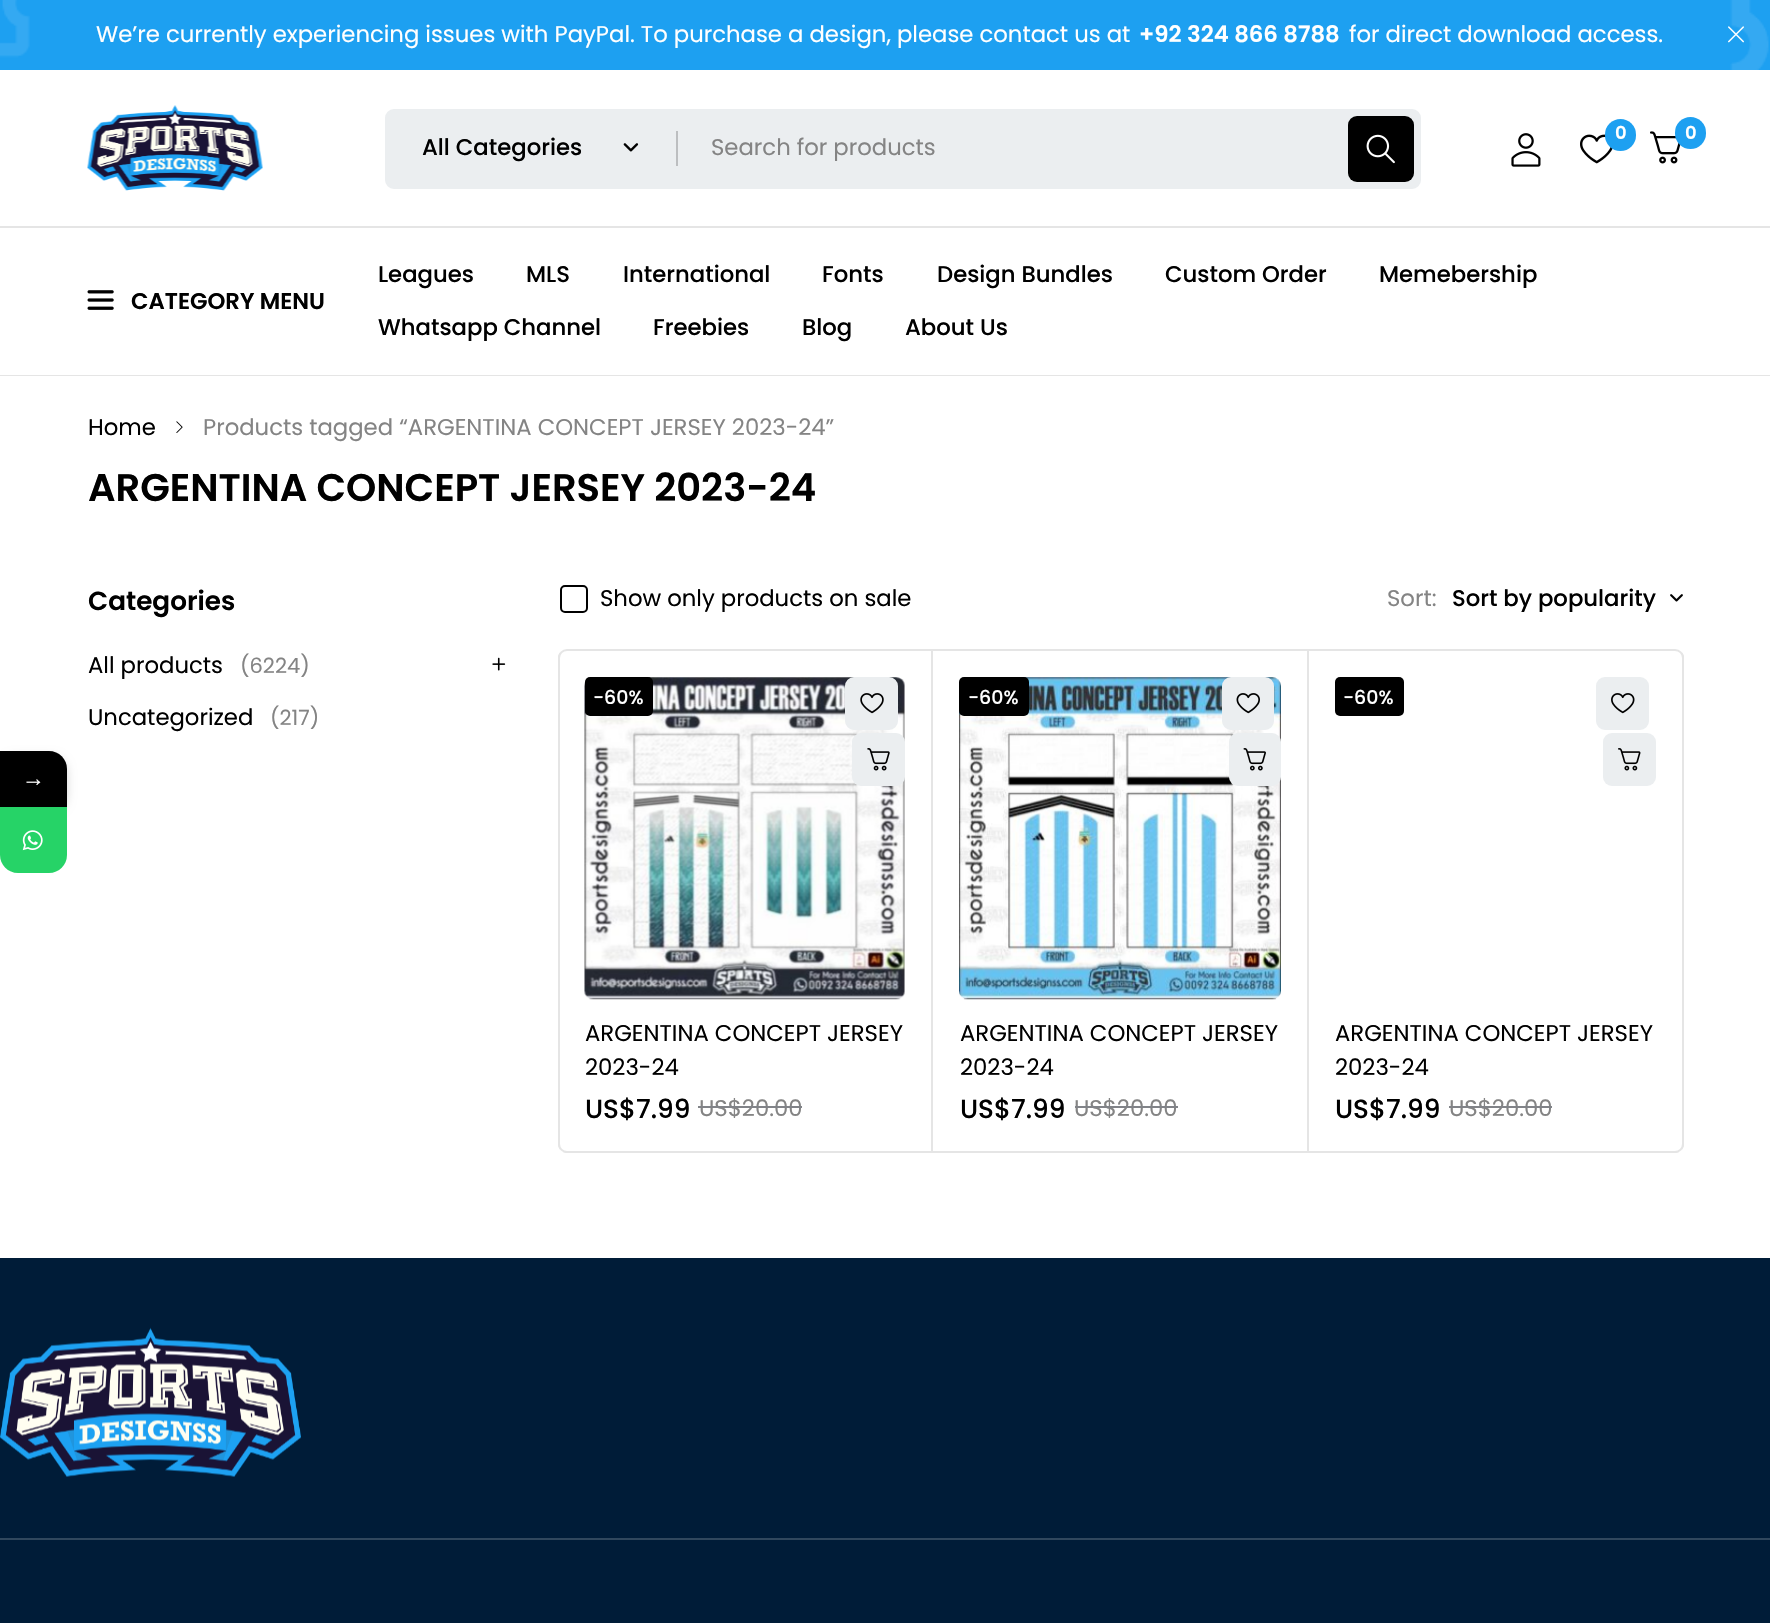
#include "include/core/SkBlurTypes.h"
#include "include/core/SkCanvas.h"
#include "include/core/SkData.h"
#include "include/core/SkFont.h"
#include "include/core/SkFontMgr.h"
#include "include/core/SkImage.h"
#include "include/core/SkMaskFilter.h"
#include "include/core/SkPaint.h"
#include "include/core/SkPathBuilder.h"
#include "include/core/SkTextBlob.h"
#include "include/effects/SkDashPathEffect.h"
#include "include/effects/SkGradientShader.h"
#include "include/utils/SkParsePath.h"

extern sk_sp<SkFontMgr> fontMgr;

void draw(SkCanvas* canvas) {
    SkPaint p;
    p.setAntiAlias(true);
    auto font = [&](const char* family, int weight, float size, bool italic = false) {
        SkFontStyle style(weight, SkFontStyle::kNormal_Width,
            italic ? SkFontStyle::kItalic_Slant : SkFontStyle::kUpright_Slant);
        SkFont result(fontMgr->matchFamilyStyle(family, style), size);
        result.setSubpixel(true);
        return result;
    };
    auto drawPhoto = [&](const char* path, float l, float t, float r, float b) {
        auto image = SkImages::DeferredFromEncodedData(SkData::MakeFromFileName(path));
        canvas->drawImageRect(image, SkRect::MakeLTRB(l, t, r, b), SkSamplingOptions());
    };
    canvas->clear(0xFFFFFFFF);
    p.setColor(0x29000000);
    p.setMaskFilter(SkMaskFilter::MakeBlur(kNormal_SkBlurStyle, 5));
    canvas->drawRoundRect(SkRect::MakeLTRB(0, 756, 67, 812), 18, 18, p);
    p.setMaskFilter(nullptr);
    p.setColor(0xFF000000);
    canvas->drawPath(SkPathBuilder().moveTo(0, 751).lineTo(49, 751).cubicTo(59, 751, 67, 759, 67, 769).lineTo(67, 807).lineTo(0, 807).close().detach(), p);
    auto font1 = font("Liberation Serif", 400, 22.75f);
    p.setColor(0xFFFFFFFF);
    canvas->drawString("→", 22, 786, font1, p);
    p.setColor(0xFF26D367);
    canvas->drawPath(SkPathBuilder().moveTo(0, 807).lineTo(67, 807).lineTo(67, 855).cubicTo(67, 865, 59, 873, 49, 873).lineTo(18, 873).cubicTo(8, 873, 0, 865, 0, 855).close().detach(), p);
    drawPhoto("media/1.png", 22, 830, 43, 851);
    p.setColor(0xFF1DA0F1);
    canvas->drawRect(SkRect::MakeLTRB(0, 0, 1770, 70), p);
    drawPhoto("media/2.png", 0, 0, 1769, 70);
    auto font2 = font("Poppins", 400, 22.75f);
    p.setColor(0xFFFFFFFF);
    canvas->drawString("We’re currently experiencing issues with PayPal. To purchase a design, please contact us at", 96, 42, font2, p);
    auto font3 = font("Poppins", 600, 22.75f);
    canvas->drawString("+92 324 866 8788", 1139, 42, font3, p);
    canvas->drawString("for direct download access.", 1349, 42, font2, p);
    drawPhoto("media/3.png", 1728, 26, 1744, 43);
    p.setColor(0xFFE5E5E5);
    canvas->drawRect(SkRect::MakeLTRB(0, 226, 1770, 228), p);
    drawPhoto("media/4.png", 87, 105, 263, 191);
    drawPhoto("media/5.png", 1511, 133, 1541, 167);
    drawPhoto("media/6.png", 1580, 134, 1613, 164);
    p.setColor(0xFF1DA0F1);
    canvas->drawRoundRect(SkRect::MakeLTRB(1605, 119, 1636, 151), 15.5f, 15.5f, p);
    auto font4 = font("Poppins", 600, 18);
    p.setColor(0xFFFFFFFF);
    canvas->drawString("0", 1615, 139, font4, p);
    drawPhoto("media/7.png", 1650, 131, 1681, 164);
    p.setColor(0xFF1DA0F1);
    canvas->drawRoundRect(SkRect::MakeLTRB(1675, 117, 1706, 149), 15.5f, 15.5f, p);
    p.setColor(0xFFFFFFFF);
    canvas->drawString("0", 1685, 139, font4, p);
    p.setColor(0xFFEBEEF0);
    canvas->drawRoundRect(SkRect::MakeLTRB(386, 110, 1420, 188), 8, 8, p);
    p.setStyle(SkPaint::kStroke_Style);
    p.setStrokeWidth(2);
    canvas->drawRoundRect(SkRect::MakeLTRB(386, 110, 1420, 188), 8, 8, p);
    auto font5 = font("Poppins", 500, 22.75f);
    p.setStyle(SkPaint::kFill_Style);
    p.setColor(0xFF000000);
    canvas->drawString("All Categories", 422, 155, font5, p);
    drawPhoto("media/8.png", 623, 143, 639, 152);
    p.setColor(0xFFBCBEC0);
    canvas->drawRect(SkRect::MakeLTRB(676, 131, 678, 166), p);
    p.setColor(0xFF848484);
    canvas->drawString("Search for products", 711, 155, font2, p);
    p.setColor(0xFF000000);
    canvas->drawRoundRect(SkRect::MakeLTRB(1348, 116, 1414, 182), 9, 9, p);
    drawPhoto("media/9.png", 1366, 134, 1395, 164);
    p.setColor(0xFFE5E5E5);
    canvas->drawRect(SkRect::MakeLTRB(0, 375, 1770, 376), p);
    drawPhoto("media/10.png", 87, 290, 114, 310);
    p.setColor(0xFF000000);
    canvas->drawString("CATEGORY MENU", 131, 309, font3, p);
    {
        const struct { const char* s; float x, y; } items[] = {
            {"Leagues", 378, 282},
            {"MLS", 526, 282},
            {"International", 623, 282},
            {"Fonts", 822, 282},
            {"Design Bundles", 937, 282},
            {"Custom Order", 1165, 282},
            {"Memebership", 1379, 282},
            {"Whatsapp Channel", 378, 335},
            {"Freebies", 653, 335},
            {"Blog", 802, 335},
            {"About Us", 905, 335},
        };
        for (auto [s, x, y] : items) {
            canvas->drawString(s, x, y, font5, p);
        }
    }
    canvas->drawString("Home", 88, 435, font2, p);
    drawPhoto("media/11.png", 176, 421, 183, 433);
    p.setColor(0xFF848484);
    canvas->drawString("Products tagged “ARGENTINA CONCEPT JERSEY 2023-24”", 203, 435, font2, p);
    auto font6 = font("Poppins", 600, 38.5f);
    p.setColor(0xFF000000);
    canvas->drawString("ARGENTINA CONCEPT JERSEY 2023-24", 88, 501, font6, p);
    auto font7 = font("Poppins", 600, 26.25f);
    canvas->drawString("Categories", 88, 610, font7, p);
    canvas->drawString("All products", 88, 673, font2, p);
    auto font8 = font("Poppins", 400, 21);
    p.setColor(0xFF848484);
    canvas->drawString("(6224)", 240, 673, font8, p);
    drawPhoto("media/12.png", 492, 657, 506, 671);
    p.setColor(0xFF000000);
    canvas->drawString("Uncategorized", 88, 725, font2, p);
    p.setColor(0xFF848484);
    canvas->drawString("(217)", 270, 725, font8, p);
    p.setStyle(SkPaint::kStroke_Style);
    p.setColor(0xFF000000);
    canvas->drawRoundRect(SkRect::MakeLTRB(561, 586, 587, 612), 4, 4, p);
    p.setStyle(SkPaint::kFill_Style);
    canvas->drawString("Show only products on sale", 600, 606, font2, p);
    p.setColor(0xFF848484);
    canvas->drawString("Sort:", 1387, 606, font2, p);
    p.setColor(0xFF000000);
    canvas->drawString("Sort by popularity", 1452, 606, font5, p);
    drawPhoto("media/13.png", 1670, 594, 1683, 602);
    p.setStyle(SkPaint::kStroke_Style);
    p.setColor(0xFFE5E5E5);
    canvas->drawRoundRect(SkRect::MakeLTRB(559, 650, 1683, 1152), 8, 8, p);
    p.setStyle(SkPaint::kFill_Style);
    canvas->drawRect(SkRect::MakeLTRB(931, 651, 933, 1153), p);
    canvas->save();
    canvas->clipPath(SkPathBuilder().moveTo(567, 649).lineTo(1675, 649).cubicTo(1680, 649, 1684, 653, 1684, 658).lineTo(1684, 1144).cubicTo(1684, 1149, 1680, 1153, 1675, 1153).lineTo(567, 1153).cubicTo(562, 1153, 558, 1149, 558, 1144).lineTo(558, 658).cubicTo(558, 653, 562, 649, 567, 649).close().detach(), true);
    canvas->drawRect(SkRect::MakeLTRB(558, 1152, 933, 1153), p);
    canvas->drawRect(SkRect::MakeLTRB(558, 649, 560, 1153), p);
    canvas->restore();
    drawPhoto("media/14.png", 584, 677, 905, 1000);
    p.setColor(0xFF000000);
    canvas->drawRoundRect(SkRect::MakeLTRB(585, 677, 653, 716), 5, 5, p);
    auto font9 = font("Poppins", 500, 19);
    p.setColor(0xFFFFFFFF);
    canvas->drawString("-60%", 593, 704, font9, p);
    p.setColor(0xFFEBEEF0);
    canvas->drawRoundRect(SkRect::MakeLTRB(846, 678, 897, 729), 8, 8, p);
    p.setStyle(SkPaint::kStroke_Style);
    canvas->drawRoundRect(SkRect::MakeLTRB(846, 678, 897, 729), 8, 8, p);
    drawPhoto("media/15.png", 860, 693, 884, 714);
    p.setStyle(SkPaint::kFill_Style);
    canvas->drawRoundRect(SkRect::MakeLTRB(852, 733, 905, 786), 9, 9, p);
    drawPhoto("media/16.png", 867, 748, 890, 771);
    p.setColor(0xFF000000);
    canvas->drawString("ARGENTINA CONCEPT JERSEY", 585, 1041, font2, p);
    canvas->drawString("2023-24", 585, 1075, font2, p);
    auto font10 = font("Poppins", 500, 26.25f);
    canvas->drawString("US$7.99", 585, 1118, font10, p);
    p.setColor(0xFF848484);
    canvas->drawString("US$20.00", 699, 1116, font2, p);
    p.setColor(0xFF818388);
    canvas->drawRect(SkRect::MakeLTRB(698, 1106, 802, 1108), p);
    p.setColor(0xFFE5E5E5);
    canvas->drawRect(SkRect::MakeLTRB(1307, 651, 1309, 1153), p);
    drawPhoto("media/17.png", 959, 677, 1281, 1000);
    p.setColor(0xFF000000);
    canvas->drawRoundRect(SkRect::MakeLTRB(959, 677, 1029, 716), 5, 5, p);
    p.setColor(0xFFFFFFFF);
    canvas->drawString("-60%", 968, 704, font9, p);
    p.setColor(0xFFEBEEF0);
    canvas->drawRoundRect(SkRect::MakeLTRB(1223, 678, 1273, 729), 8, 8, p);
    p.setStyle(SkPaint::kStroke_Style);
    canvas->drawRoundRect(SkRect::MakeLTRB(1223, 678, 1273, 729), 8, 8, p);
    drawPhoto("media/18.png", 1236, 693, 1260, 714);
    p.setStyle(SkPaint::kFill_Style);
    canvas->drawRoundRect(SkRect::MakeLTRB(1229, 733, 1281, 786), 9, 9, p);
    drawPhoto("media/19.png", 1243, 748, 1266, 771);
    p.setColor(0xFF000000);
    canvas->drawString("ARGENTINA CONCEPT JERSEY", 960, 1041, font2, p);
    canvas->drawString("2023-24", 960, 1075, font2, p);
    canvas->drawString("US$7.99", 960, 1118, font10, p);
    p.setColor(0xFF848484);
    canvas->drawString("US$20.00", 1074, 1116, font2, p);
    p.setColor(0xFF818388);
    canvas->drawRect(SkRect::MakeLTRB(1075, 1106, 1178, 1108), p);
    canvas->save();
    canvas->clipPath(SkPathBuilder().moveTo(567, 649).lineTo(1675, 649).cubicTo(1680, 649, 1684, 653, 1684, 658).lineTo(1684, 1144).cubicTo(1684, 1149, 1680, 1153, 1675, 1153).lineTo(567, 1153).cubicTo(562, 1153, 558, 1149, 558, 1144).lineTo(558, 658).cubicTo(558, 653, 562, 649, 567, 649).close().detach(), true);
    p.setColor(0xFFE5E5E5);
    canvas->drawRect(SkRect::MakeLTRB(1682, 651, 1684, 1153), p);
    canvas->drawRect(SkRect::MakeLTRB(1309, 1152, 1684, 1153), p);
    canvas->restore();
    p.setColor(0xFF000000);
    canvas->drawRoundRect(SkRect::MakeLTRB(1335, 677, 1404, 716), 5, 5, p);
    p.setColor(0xFFFFFFFF);
    canvas->drawString("-60%", 1343, 704, font9, p);
    p.setColor(0xFFEBEEF0);
    canvas->drawRoundRect(SkRect::MakeLTRB(1597, 678, 1648, 729), 8, 8, p);
    p.setStyle(SkPaint::kStroke_Style);
    canvas->drawRoundRect(SkRect::MakeLTRB(1597, 678, 1648, 729), 8, 8, p);
    drawPhoto("media/20.png", 1611, 693, 1635, 714);
    p.setStyle(SkPaint::kFill_Style);
    canvas->drawRoundRect(SkRect::MakeLTRB(1603, 733, 1656, 786), 9, 9, p);
    drawPhoto("media/21.png", 1618, 748, 1641, 771);
    p.setColor(0xFF000000);
    canvas->drawString("ARGENTINA CONCEPT JERSEY", 1335, 1041, font2, p);
    canvas->drawString("2023-24", 1335, 1075, font2, p);
    canvas->drawString("US$7.99", 1335, 1118, font10, p);
    p.setColor(0xFF848484);
    canvas->drawString("US$20.00", 1449, 1116, font2, p);
    p.setColor(0xFF818388);
    canvas->drawRect(SkRect::MakeLTRB(1449, 1106, 1552, 1108), p);
    p.setColor(0xFF001C38);
    canvas->drawRect(SkRect::MakeLTRB(0, 1258, 1770, 1623), p);
    drawPhoto("media/22.png", 0, 1327, 301, 1477);
    p.setColor(0xFF30475D);
    canvas->drawRect(SkRect::MakeLTRB(0, 1538, 1770, 1540), p);
}
